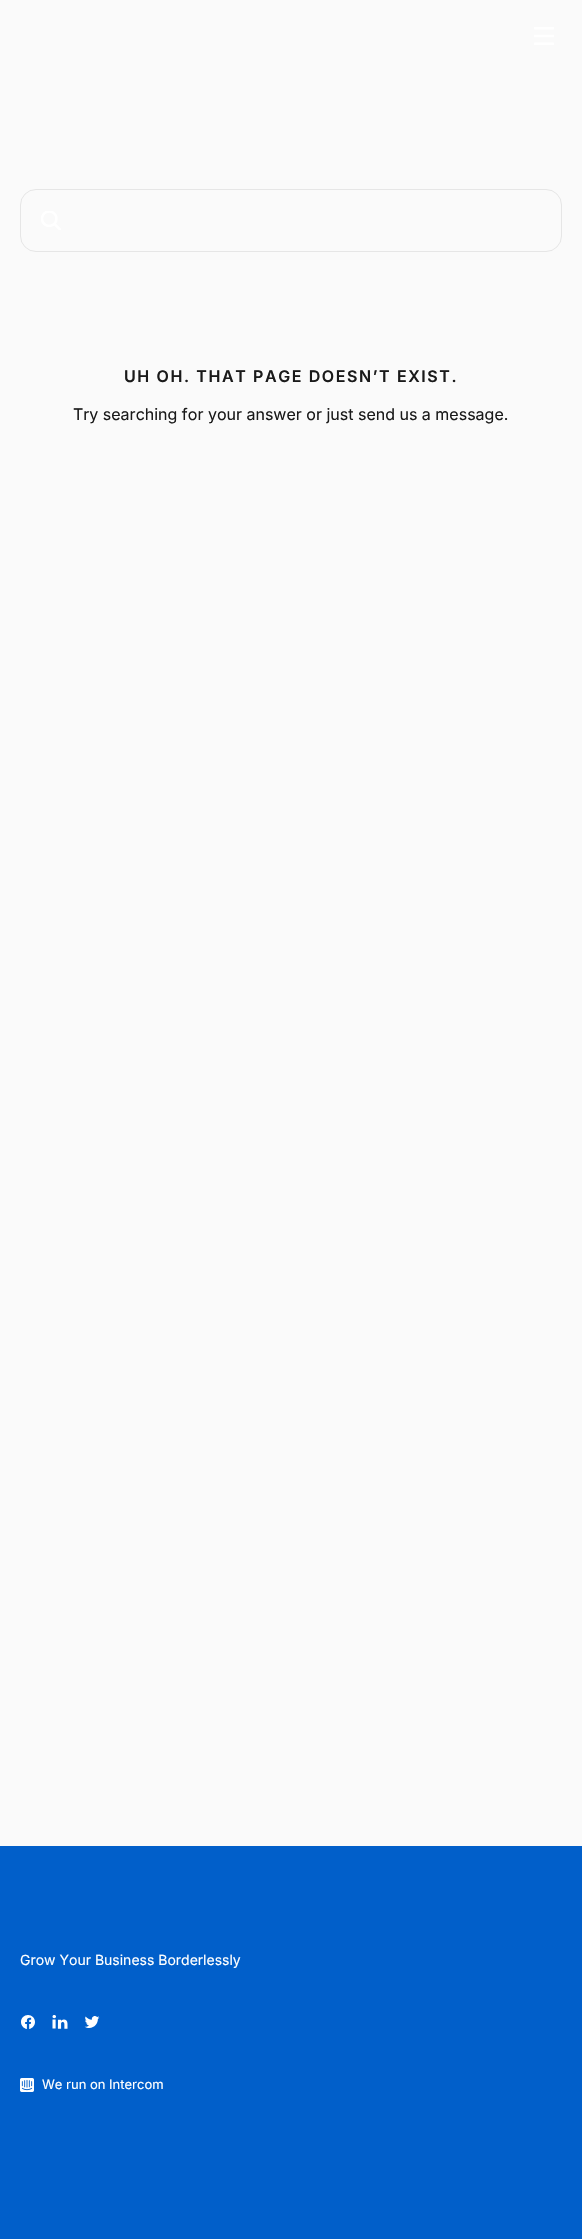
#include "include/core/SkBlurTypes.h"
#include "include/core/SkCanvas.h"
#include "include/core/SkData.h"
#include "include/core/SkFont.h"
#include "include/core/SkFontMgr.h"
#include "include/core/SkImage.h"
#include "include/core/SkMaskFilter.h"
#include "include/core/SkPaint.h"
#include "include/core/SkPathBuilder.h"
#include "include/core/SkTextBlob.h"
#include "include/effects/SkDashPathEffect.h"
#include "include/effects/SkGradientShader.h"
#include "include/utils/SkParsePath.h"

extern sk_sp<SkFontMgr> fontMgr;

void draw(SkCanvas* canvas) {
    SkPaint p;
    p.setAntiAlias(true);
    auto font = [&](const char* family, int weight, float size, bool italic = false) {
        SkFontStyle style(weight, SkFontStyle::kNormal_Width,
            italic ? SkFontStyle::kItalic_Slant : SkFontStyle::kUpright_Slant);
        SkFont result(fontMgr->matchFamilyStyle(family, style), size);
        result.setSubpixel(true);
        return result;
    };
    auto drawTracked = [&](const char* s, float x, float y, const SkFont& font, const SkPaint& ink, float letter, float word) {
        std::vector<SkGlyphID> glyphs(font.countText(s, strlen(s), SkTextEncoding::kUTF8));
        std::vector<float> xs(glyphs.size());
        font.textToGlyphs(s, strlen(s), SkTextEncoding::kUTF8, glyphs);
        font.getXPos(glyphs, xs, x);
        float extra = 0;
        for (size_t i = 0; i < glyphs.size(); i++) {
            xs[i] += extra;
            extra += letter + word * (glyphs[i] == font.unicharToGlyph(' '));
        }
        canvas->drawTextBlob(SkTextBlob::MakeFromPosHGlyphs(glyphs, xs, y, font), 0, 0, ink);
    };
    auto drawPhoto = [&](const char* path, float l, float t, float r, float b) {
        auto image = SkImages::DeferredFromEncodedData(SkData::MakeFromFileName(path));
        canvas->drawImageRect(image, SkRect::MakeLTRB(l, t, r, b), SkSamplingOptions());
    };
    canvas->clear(0xFFFAFAFA);
    drawPhoto("media/1.png", 534, 27, 554, 45);
    p.setStyle(SkPaint::kStroke_Style);
    p.setStrokeWidth(1);
    p.setColor(0x14000000);
    canvas->drawRoundRect(SkRect::MakeLTRB(20.5f, 189.5f, 561.5f, 251.5f), 15.5f, 15.5f, p);
    drawPhoto("media/2.png", 41, 211, 61, 230);
    auto font1 = font("Inter", 600, 16);
    p.setStyle(SkPaint::kFill_Style);
    p.setColor(0xFF1A1A1A);
    drawTracked("UH OH. THAT PAGE DOESN’T EXIST.", 124, 382, font1, p, 1.6f, 0);
    auto font2 = font("Inter", 400, 16);
    canvas->drawString("Try searching for your answer or just send us a message.", 73, 420, font2, p);
    p.setColor(0xFF015FCA);
    canvas->drawRect(SkRect::MakeLTRB(0, 1846, 582, 2239), p);
    auto font3 = font("Inter", 400, 14);
    p.setColor(0xFFFFFFFF);
    canvas->drawString("Grow Your Business Borderlessly", 20, 1965, font3, p);
    drawPhoto("media/3.png", 21, 2015, 35, 2029);
    drawPhoto("media/4.png", 52, 2015, 68, 2029);
    drawPhoto("media/5.png", 84, 2016, 100, 2028);
    drawPhoto("media/6.png", 20, 2078, 34, 2092);
    auto font4 = font("Inter", 400, 13);
    canvas->drawString("We run on Intercom", 42, 2089, font4, p);
}
